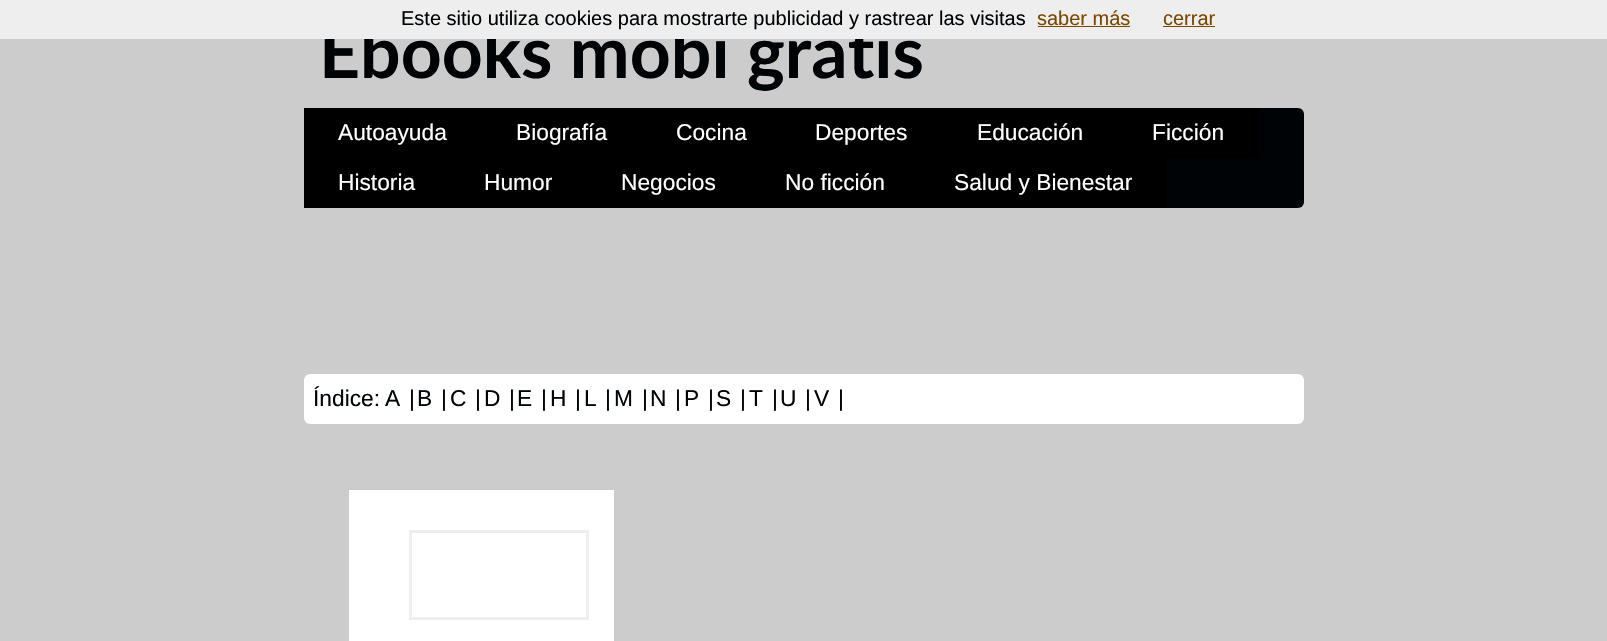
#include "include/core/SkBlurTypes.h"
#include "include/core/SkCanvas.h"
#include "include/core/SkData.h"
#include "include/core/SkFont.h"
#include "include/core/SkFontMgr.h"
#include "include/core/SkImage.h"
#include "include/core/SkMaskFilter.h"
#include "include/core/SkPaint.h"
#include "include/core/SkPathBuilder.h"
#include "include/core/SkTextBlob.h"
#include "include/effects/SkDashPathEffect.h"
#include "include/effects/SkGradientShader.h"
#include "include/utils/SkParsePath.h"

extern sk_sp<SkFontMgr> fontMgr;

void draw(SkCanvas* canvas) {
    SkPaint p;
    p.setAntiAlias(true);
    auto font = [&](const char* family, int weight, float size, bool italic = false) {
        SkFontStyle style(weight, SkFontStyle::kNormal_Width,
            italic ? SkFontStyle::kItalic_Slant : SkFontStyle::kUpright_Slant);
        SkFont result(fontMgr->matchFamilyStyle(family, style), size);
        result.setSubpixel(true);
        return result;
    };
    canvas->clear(0xFFCCCCCC);
    auto font1 = font("Lato", 700, 71.5f);
    p.setColor(0xFF000305);
    canvas->drawString("Ebooks mobi gratis", 319, 78, font1, p);
    p.setColor(0xFFEEEEEE);
    canvas->drawRect(SkRect::MakeLTRB(0, 0, 1607, 39), p);
    auto font2 = font("Liberation Sans", 400, 20);
    p.setColor(0xFF000305);
    canvas->drawString("Este sitio utiliza cookies para mostrarte publicidad y rastrear las visitas", 401, 25, font2, p);
    p.setColor(0xFF7A4700);
    canvas->drawString("saber más", 1037, 25, font2, p);
    canvas->drawRect(SkRect::MakeLTRB(1038, 26, 1130, 27), p);
    canvas->drawString("cerrar", 1163, 25, font2, p);
    canvas->drawRect(SkRect::MakeLTRB(1163, 26, 1215, 27), p);
    p.setColor(0xFF000305);
    canvas->drawRoundRect(SkRect::MakeLTRB(304, 108, 1304, 208), 6, 6, p);
    p.setColor(0xFF000000);
    canvas->drawRect(SkRect::MakeLTRB(304, 108, 1259, 158), p);
    auto font3 = font("Liberation Sans", 400, 22.75f);
    p.setColor(0xFFFFFFFF);
    {
        const struct { const char* s; float x, y; } items[] = {
            {"Autoayuda", 338, 140},
            {"Biografía", 516, 140},
            {"Cocina", 676, 140},
            {"Deportes", 815, 140},
            {"Educación", 977, 140},
            {"Ficción", 1152, 140},
        };
        for (auto [s, x, y] : items) {
            canvas->drawString(s, x, y, font3, p);
        }
    }
    p.setColor(0xFF000000);
    canvas->drawRect(SkRect::MakeLTRB(304, 158, 1166, 208), p);
    p.setColor(0xFFFFFFFF);
    {
        const struct { const char* s; float x, y; } items[] = {
            {"Historia", 338, 190},
            {"Humor", 484, 190},
            {"Negocios", 621, 190},
            {"No ficción", 785, 190},
            {"Salud y Bienestar", 954, 190},
        };
        for (auto [s, x, y] : items) {
            canvas->drawString(s, x, y, font3, p);
        }
    }
    canvas->drawRoundRect(SkRect::MakeLTRB(304, 374, 1304, 424), 6, 6, p);
    p.setColor(0xFF000305);
    {
        const struct { const char* s; float x, y; } items[] = {
            {"Índice:", 313, 406},
            {"A", 385, 406},
            {"|", 409, 406},
            {"B", 417, 406},
            {"|", 441, 406},
            {"C", 450, 406},
            {"|", 475, 406},
            {"D", 484, 406},
            {"|", 509, 406},
            {"E", 517, 406},
            {"|", 541, 406},
            {"H", 550, 406},
            {"|", 575, 406},
            {"L", 584, 406},
            {"|", 605, 406},
            {"M", 614, 406},
            {"|", 642, 406},
            {"N", 650, 406},
            {"|", 675, 406},
            {"P", 684, 406},
            {"|", 708, 406},
            {"S", 716, 406},
            {"|", 740, 406},
            {"T", 749, 406},
            {"|", 772, 406},
            {"U", 780, 406},
            {"|", 805, 406},
            {"V", 814, 406},
            {"|", 838, 406},
        };
        for (auto [s, x, y] : items) {
            canvas->drawString(s, x, y, font3, p);
        }
    }
    p.setColor(0xFFFFFFFF);
    canvas->drawRect(SkRect::MakeLTRB(349, 490, 614, 641), p);
    p.setStyle(SkPaint::kStroke_Style);
    p.setStrokeWidth(3);
    p.setColor(0xFFEEEEEE);
    canvas->drawRect(SkRect::MakeLTRB(410.5f, 531.5f, 587.5f, 618.5f), p);
}
